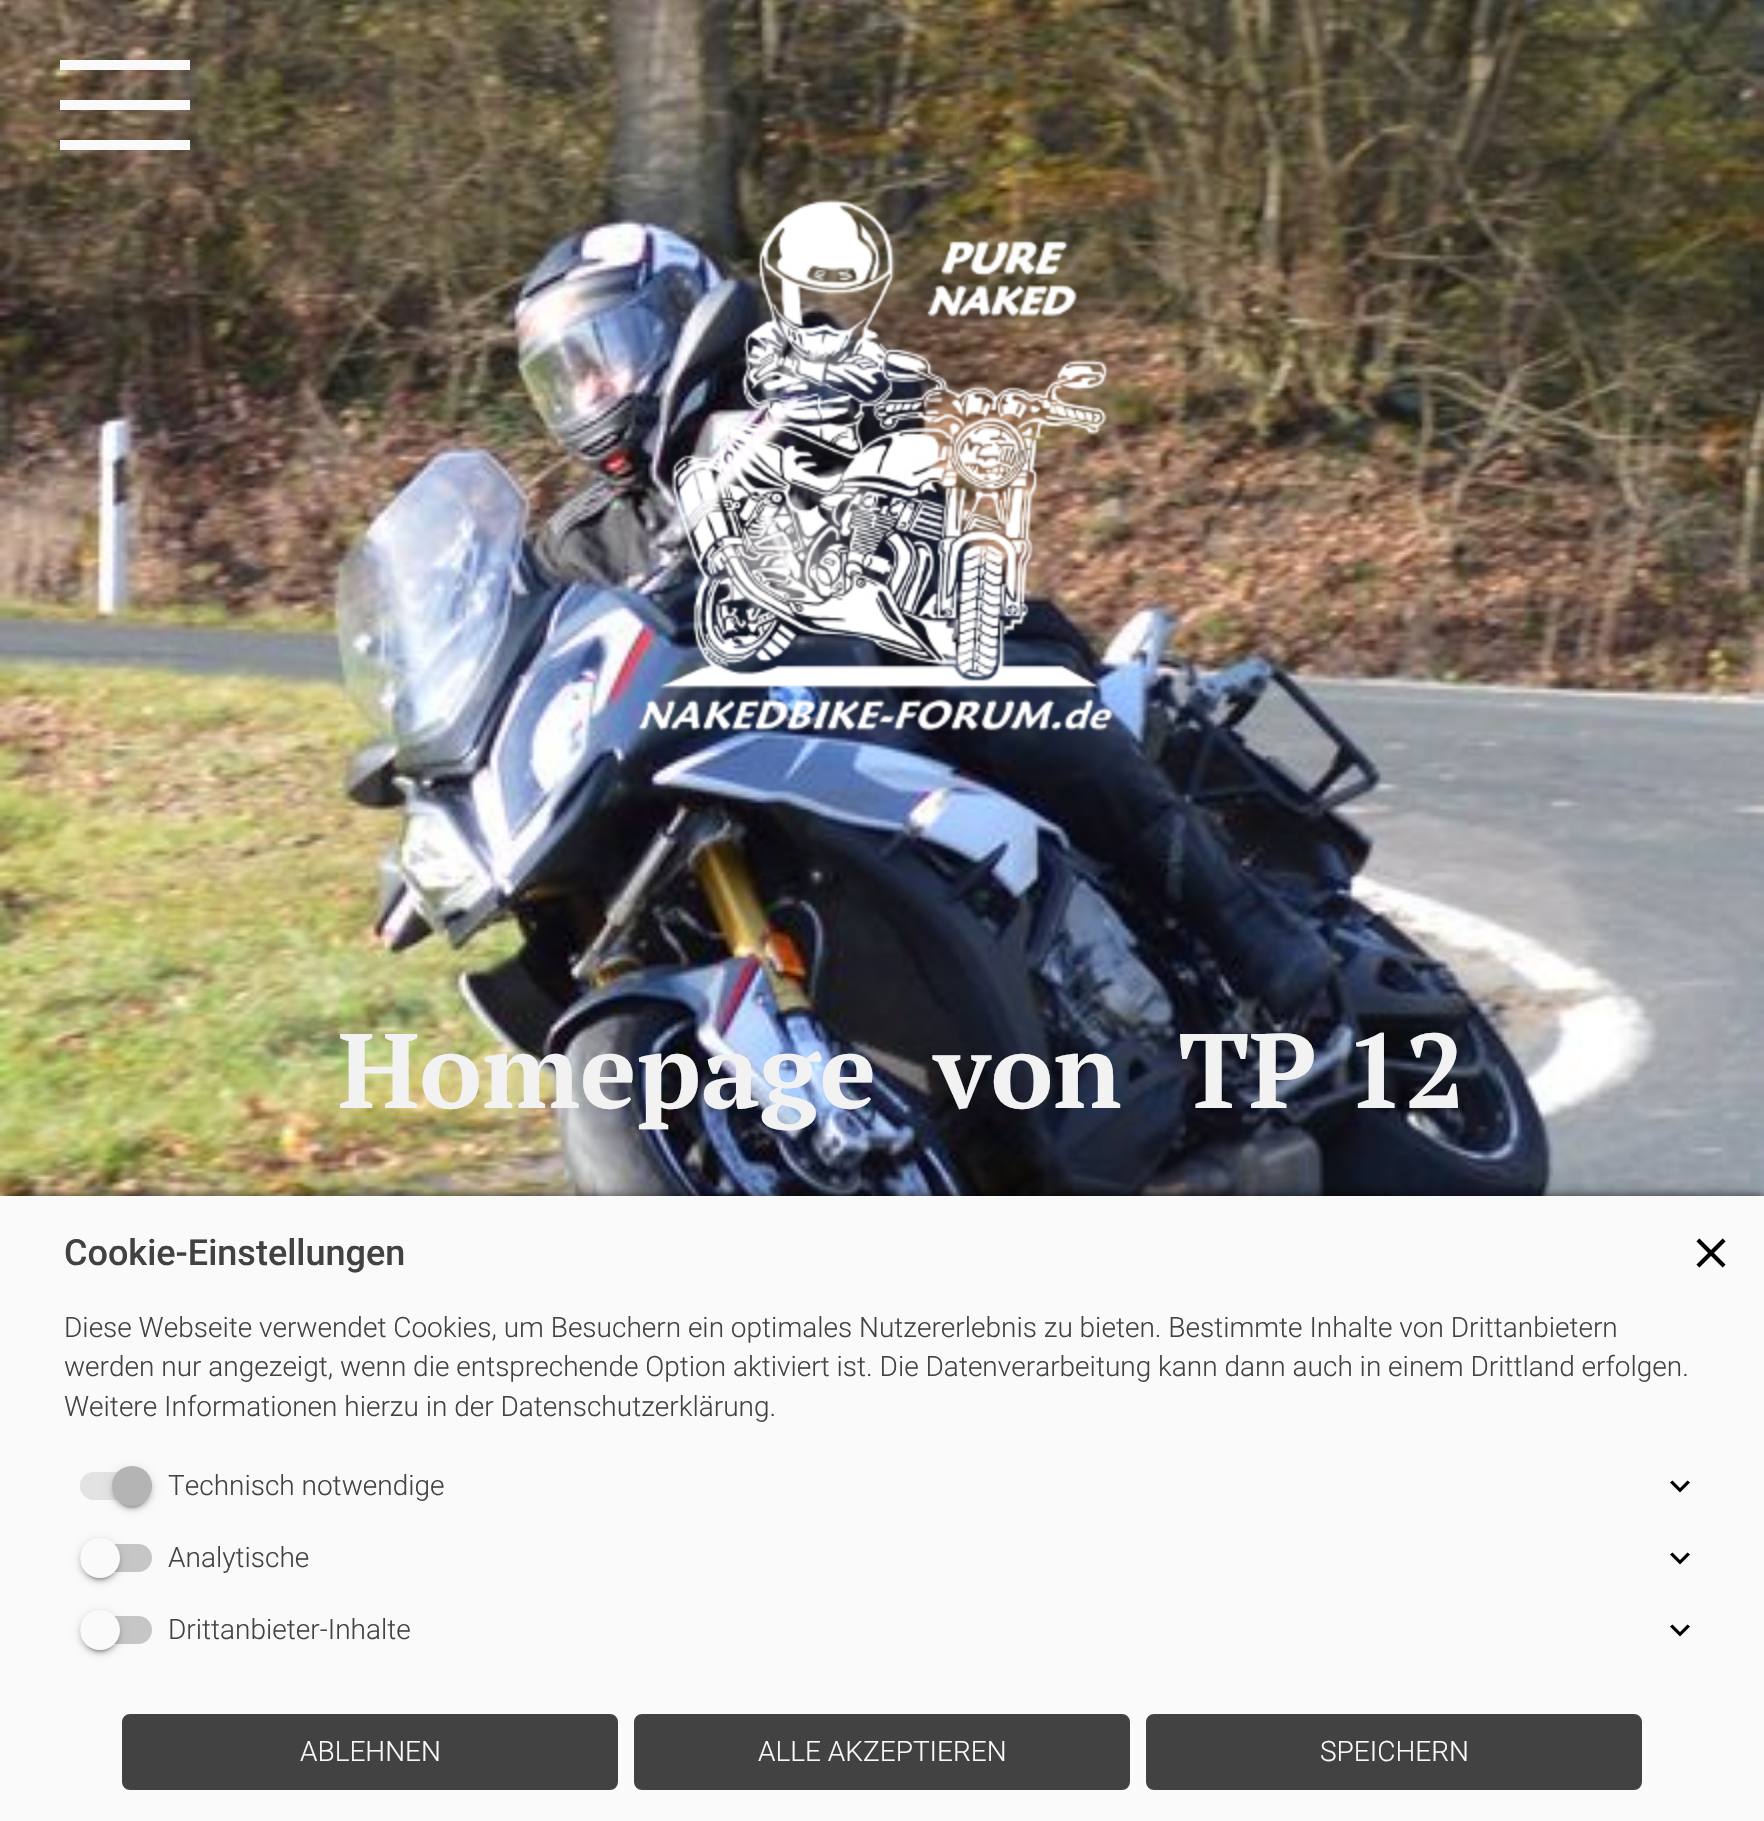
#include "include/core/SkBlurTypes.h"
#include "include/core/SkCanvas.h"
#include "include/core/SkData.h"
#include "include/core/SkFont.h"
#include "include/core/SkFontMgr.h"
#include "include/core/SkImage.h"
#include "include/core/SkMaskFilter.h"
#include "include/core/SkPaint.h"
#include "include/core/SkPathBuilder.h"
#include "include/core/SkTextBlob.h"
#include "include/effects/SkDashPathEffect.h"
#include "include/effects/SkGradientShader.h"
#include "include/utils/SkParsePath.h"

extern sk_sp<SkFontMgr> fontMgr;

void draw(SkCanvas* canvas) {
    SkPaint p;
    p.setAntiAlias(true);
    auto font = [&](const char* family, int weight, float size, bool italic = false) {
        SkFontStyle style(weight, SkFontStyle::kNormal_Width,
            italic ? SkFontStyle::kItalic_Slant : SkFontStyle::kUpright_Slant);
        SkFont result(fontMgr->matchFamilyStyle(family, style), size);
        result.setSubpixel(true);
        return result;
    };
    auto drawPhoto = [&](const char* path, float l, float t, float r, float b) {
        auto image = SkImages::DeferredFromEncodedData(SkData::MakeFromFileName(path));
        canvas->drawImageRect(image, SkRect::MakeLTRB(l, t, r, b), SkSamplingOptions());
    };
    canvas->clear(0xFFFFFFFF);
    drawPhoto("media/1.png", 0, 0, 1764, 1196);
    {
        const struct { float l, t, r, b; SkColor color; } items[] = {
            {60, 60, 190, 70, 0xFFFAFAFA},
            {60, 100, 190, 110, 0xFFFAFAFA},
            {60, 140, 190, 150, 0xFFFAFAFA},
        };
        for (auto [l, t, r, b, color] : items) {
            p.setColor(color);
            canvas->drawRect(SkRect::MakeLTRB(l, t, r, b), p);
        }
    }
    drawPhoto("media/2.png", 637, 199, 1132, 731);
    auto font1 = font("PT Serif", 700, 105.75f);
    p.setColor(0xFFF2F2F2);
    canvas->drawString("Homepage  von  TP 12", 338, 1108, font1, p);
    p.setColor(0x8C000000);
    p.setMaskFilter(SkMaskFilter::MakeBlur(kNormal_SkBlurStyle, 5));
    canvas->drawRect(SkRect::MakeLTRB(0, 1194, 1764, 1820), p);
    p.setMaskFilter(nullptr);
    p.setColor(0xFFFAFAFA);
    canvas->drawRect(SkRect::MakeLTRB(0, 1196, 1764, 1821), p);
    auto font2 = font("Roboto", 500, 36);
    p.setColor(0xFF424242);
    canvas->drawString("Cookie-Einstellungen", 64, 1265, font2, p);
    drawPhoto("media/3.png", 1696, 1238, 1726, 1268);
    auto font3 = font("Roboto", 300, 28);
    {
        const struct { const char* s; float x, y; } items[] = {
            {"Diese Webseite verwendet Cookies, um Besuchern ein optimales Nutzererlebnis zu bieten. Bestimmte Inhalte von Drittanbietern", 64, 1337},
            {"werden nur angezeigt, wenn die entsprechende Option aktiviert ist. Die Datenverarbeitung kann dann auch in einem Drittland erfolgen.", 64, 1376},
            {"Weitere Informationen hierzu in der Datenschutzerklärung.", 64, 1416},
        };
        for (auto [s, x, y] : items) {
            canvas->drawString(s, x, y, font3, p);
        }
    }
    p.setColor(0xFFE3E3E3);
    canvas->drawRoundRect(SkRect::MakeLTRB(80, 1472, 152, 1500), 14, 14, p);
    p.setColor(0x1F000000);
    p.setMaskFilter(SkMaskFilter::MakeBlur(kNormal_SkBlurStyle, 5));
    canvas->drawRoundRect(SkRect::MakeLTRB(112, 1468, 152, 1508), 20, 20, p);
    p.setMaskFilter(nullptr);
    p.setColor(0x24000000);
    p.setMaskFilter(SkMaskFilter::MakeBlur(kNormal_SkBlurStyle, 2));
    canvas->drawRoundRect(SkRect::MakeLTRB(112, 1470, 152, 1510), 20, 20, p);
    p.setMaskFilter(nullptr);
    p.setColor(0x33000000);
    p.setMaskFilter(SkMaskFilter::MakeBlur(kNormal_SkBlurStyle, 1));
    canvas->drawRoundRect(SkRect::MakeLTRB(116, 1476, 148, 1508), 16, 16, p);
    p.setMaskFilter(nullptr);
    p.setColor(0xFFB4B4B4);
    canvas->drawCircle(132, 1486, 20, p);
    p.setColor(0xFF424242);
    canvas->drawString("Technisch notwendige", 168, 1495, font3, p);
    p.setColor(0xFF000000);
    canvas->drawPath(SkPathBuilder().moveTo(1687.5f, 1480.5f).lineTo(1680, 1488).lineTo(1672.5f, 1480.5f).lineTo(1670, 1482.5f).lineTo(1680, 1492.5f).lineTo(1690, 1482.5f).close().detach(), p);
    p.setColor(0xFFC6C6C6);
    canvas->drawRoundRect(SkRect::MakeLTRB(80, 1544, 152, 1572), 14, 14, p);
    p.setColor(0x1F000000);
    p.setMaskFilter(SkMaskFilter::MakeBlur(kNormal_SkBlurStyle, 5));
    canvas->drawRoundRect(SkRect::MakeLTRB(80, 1540, 120, 1580), 20, 20, p);
    p.setMaskFilter(nullptr);
    p.setColor(0x24000000);
    p.setMaskFilter(SkMaskFilter::MakeBlur(kNormal_SkBlurStyle, 2));
    canvas->drawRoundRect(SkRect::MakeLTRB(80, 1542, 120, 1582), 20, 20, p);
    p.setMaskFilter(nullptr);
    p.setColor(0x33000000);
    p.setMaskFilter(SkMaskFilter::MakeBlur(kNormal_SkBlurStyle, 1));
    canvas->drawRoundRect(SkRect::MakeLTRB(84, 1548, 116, 1580), 16, 16, p);
    p.setMaskFilter(nullptr);
    p.setColor(0xFFFAFAFA);
    canvas->drawCircle(100, 1558, 20, p);
    p.setColor(0xFF424242);
    canvas->drawString("Analytische", 168, 1567, font3, p);
    p.setColor(0xFF000000);
    canvas->drawPath(SkPathBuilder().moveTo(1687.5f, 1552.5f).lineTo(1680, 1560).lineTo(1672.5f, 1552.5f).lineTo(1670, 1554.5f).lineTo(1680, 1564.5f).lineTo(1690, 1554.5f).close().detach(), p);
    p.setColor(0xFFC6C6C6);
    canvas->drawRoundRect(SkRect::MakeLTRB(80, 1616, 152, 1644), 14, 14, p);
    p.setColor(0x1F000000);
    p.setMaskFilter(SkMaskFilter::MakeBlur(kNormal_SkBlurStyle, 5));
    canvas->drawRoundRect(SkRect::MakeLTRB(80, 1612, 120, 1652), 20, 20, p);
    p.setMaskFilter(nullptr);
    p.setColor(0x24000000);
    p.setMaskFilter(SkMaskFilter::MakeBlur(kNormal_SkBlurStyle, 2));
    canvas->drawRoundRect(SkRect::MakeLTRB(80, 1614, 120, 1654), 20, 20, p);
    p.setMaskFilter(nullptr);
    p.setColor(0x33000000);
    p.setMaskFilter(SkMaskFilter::MakeBlur(kNormal_SkBlurStyle, 1));
    canvas->drawRoundRect(SkRect::MakeLTRB(84, 1620, 116, 1652), 16, 16, p);
    p.setMaskFilter(nullptr);
    p.setColor(0xFFFAFAFA);
    canvas->drawCircle(100, 1630, 20, p);
    p.setColor(0xFF424242);
    canvas->drawString("Drittanbieter-Inhalte", 168, 1639, font3, p);
    p.setColor(0xFF000000);
    canvas->drawPath(SkPathBuilder().moveTo(1687.5f, 1624.5f).lineTo(1680, 1632).lineTo(1672.5f, 1624.5f).lineTo(1670, 1626.5f).lineTo(1680, 1636.5f).lineTo(1690, 1626.5f).close().detach(), p);
    p.setColor(0xFF424242);
    canvas->drawRoundRect(SkRect::MakeLTRB(123, 1715, 617, 1789), 7, 7, p);
    p.setStyle(SkPaint::kStroke_Style);
    p.setStrokeWidth(2);
    canvas->drawRoundRect(SkRect::MakeLTRB(123, 1715, 617, 1789), 7, 7, p);
    p.setStyle(SkPaint::kFill_Style);
    p.setColor(0xFFFAFAFA);
    canvas->drawString("ABLEHNEN", 300, 1761, font3, p);
    p.setColor(0xFF424242);
    canvas->drawRoundRect(SkRect::MakeLTRB(635, 1715, 1129, 1789), 7, 7, p);
    p.setStyle(SkPaint::kStroke_Style);
    canvas->drawRoundRect(SkRect::MakeLTRB(635, 1715, 1129, 1789), 7, 7, p);
    p.setStyle(SkPaint::kFill_Style);
    p.setColor(0xFFFAFAFA);
    canvas->drawString("ALLE AKZEPTIEREN", 758, 1761, font3, p);
    p.setColor(0xFF424242);
    canvas->drawRoundRect(SkRect::MakeLTRB(1147, 1715, 1641, 1789), 7, 7, p);
    p.setStyle(SkPaint::kStroke_Style);
    canvas->drawRoundRect(SkRect::MakeLTRB(1147, 1715, 1641, 1789), 7, 7, p);
    p.setStyle(SkPaint::kFill_Style);
    p.setColor(0xFFFAFAFA);
    canvas->drawString("SPEICHERN", 1320, 1761, font3, p);
}
